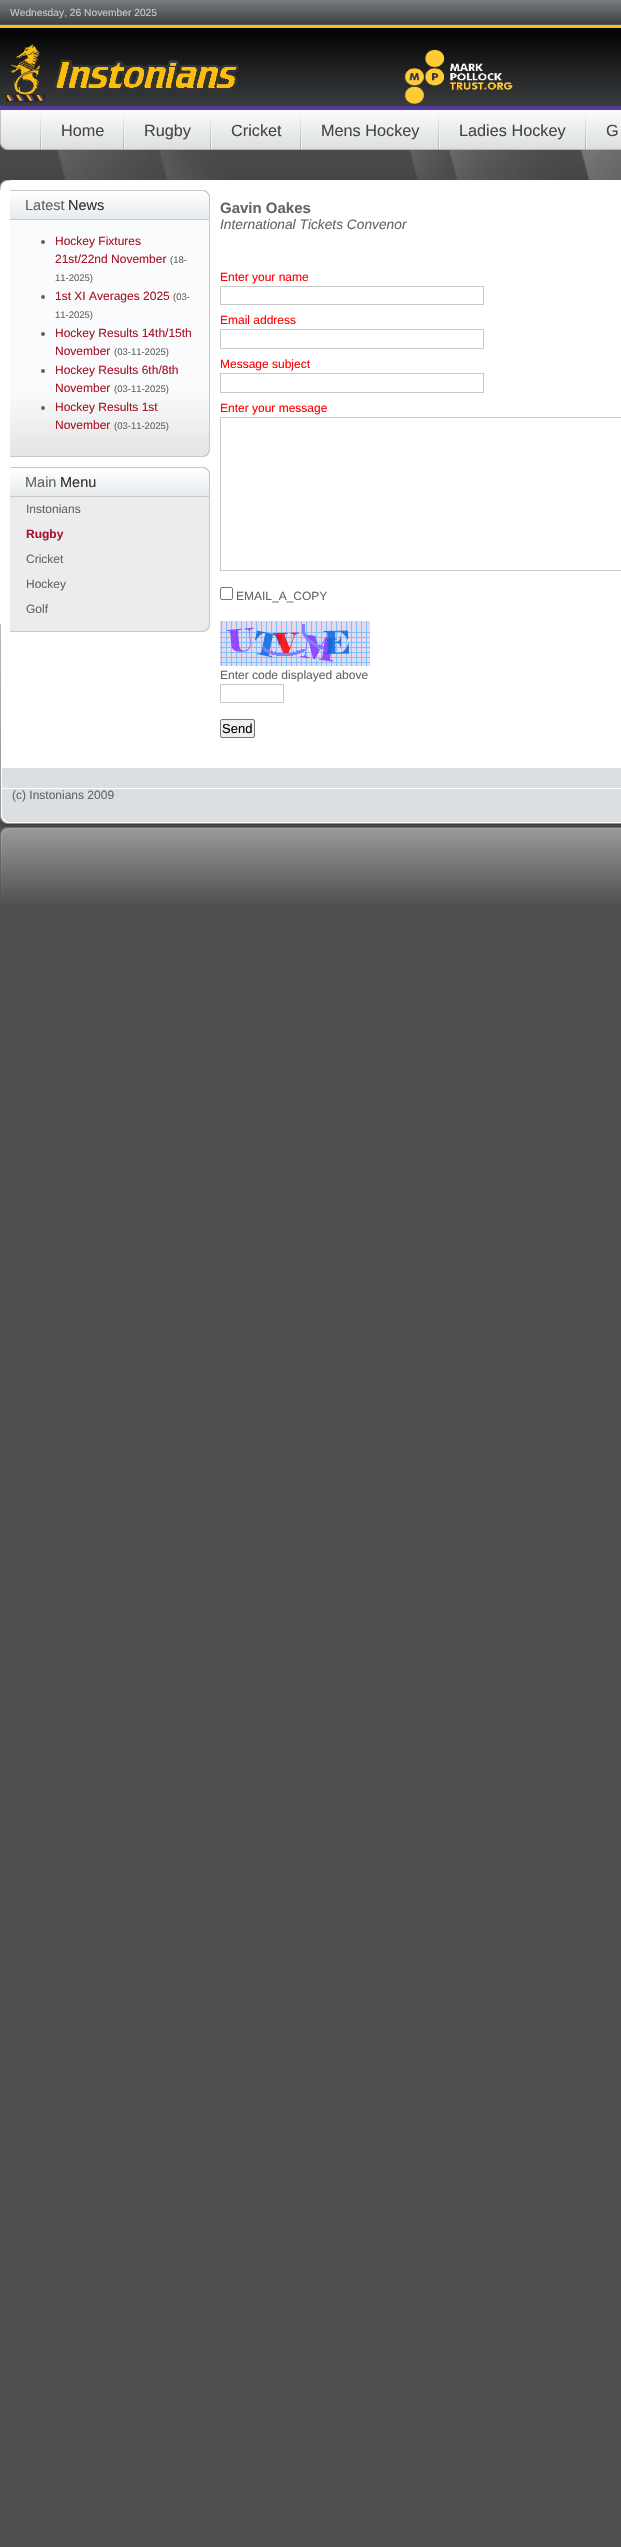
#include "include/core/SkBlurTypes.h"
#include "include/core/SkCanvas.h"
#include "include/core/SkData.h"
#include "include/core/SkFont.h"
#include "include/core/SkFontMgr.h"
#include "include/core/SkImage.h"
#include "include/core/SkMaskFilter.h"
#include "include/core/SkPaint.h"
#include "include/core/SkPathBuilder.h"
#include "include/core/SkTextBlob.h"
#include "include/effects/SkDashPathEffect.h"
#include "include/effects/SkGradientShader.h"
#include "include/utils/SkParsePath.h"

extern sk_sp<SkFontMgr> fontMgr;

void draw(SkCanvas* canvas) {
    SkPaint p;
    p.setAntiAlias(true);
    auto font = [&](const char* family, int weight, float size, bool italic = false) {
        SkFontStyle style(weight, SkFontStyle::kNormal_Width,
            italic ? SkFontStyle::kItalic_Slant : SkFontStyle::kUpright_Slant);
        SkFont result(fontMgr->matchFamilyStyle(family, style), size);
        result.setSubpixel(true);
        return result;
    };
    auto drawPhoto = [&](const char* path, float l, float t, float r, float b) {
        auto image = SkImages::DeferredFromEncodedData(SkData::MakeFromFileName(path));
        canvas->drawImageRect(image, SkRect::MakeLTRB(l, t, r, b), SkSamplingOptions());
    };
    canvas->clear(0xFF505050);
    drawPhoto("media/1.png", 0, 143, 621, 187);
    drawPhoto("media/2.png", 0, 0, 621, 25);
    auto font1 = font("Liberation Sans", 400, 10.25f);
    p.setColor(0xFFC8C8C8);
    canvas->drawString("Wednesday, 26 November 2025", 10, 16, font1, p);
    drawPhoto("media/3.png", 0, 25, 621, 110);
    drawPhoto("media/4.png", 6, 43, 239, 102);
    drawPhoto("media/5.png", 404, 49, 513, 104);
    drawPhoto("media/6.png", 0, 110, 40, 150);
    drawPhoto("media/7.png", 40, 110, 621, 150);
    drawPhoto("media/8.png", 40, 115, 41, 149);
    drawPhoto("media/9.png", 41, 125, 42, 149);
    drawPhoto("media/8.png", 123, 115, 124, 149);
    auto font2 = font("Liberation Sans", 400, 16.25f);
    p.setColor(0xFF464646);
    canvas->drawString("Home", 61, 136, font2, p);
    drawPhoto("media/9.png", 124, 125, 125, 149);
    drawPhoto("media/8.png", 210, 115, 211, 149);
    canvas->drawString("Rugby", 144, 136, font2, p);
    drawPhoto("media/9.png", 211, 125, 212, 149);
    drawPhoto("media/8.png", 300, 115, 301, 149);
    canvas->drawString("Cricket", 231, 136, font2, p);
    drawPhoto("media/9.png", 301, 125, 302, 149);
    drawPhoto("media/8.png", 438, 115, 439, 149);
    canvas->drawString("Mens Hockey", 321, 136, font2, p);
    drawPhoto("media/9.png", 439, 125, 440, 149);
    drawPhoto("media/8.png", 585, 115, 586, 149);
    canvas->drawString("Ladies Hockey", 459, 136, font2, p);
    drawPhoto("media/9.png", 586, 125, 587, 149);
    canvas->drawString("G", 606, 136, font2, p);
    drawPhoto("media/10.png", 0, 180, 10, 190);
    p.setColor(0xFFFFFFFF);
    canvas->drawRect(SkRect::MakeLTRB(10, 180, 621, 789), p);
    drawPhoto("media/11.png", 10, 789, 621, 904);
    canvas->drawRect(SkRect::MakeLTRB(0, 190, 10, 624), p);
    drawPhoto("media/12.png", 0, 624, 10, 904);
    drawPhoto("media/13.png", 10, 220, 210, 457);
    drawPhoto("media/14.png", 10, 190, 210, 220);
    drawPhoto("media/15.png", 203, 190, 210, 219);
    auto font3 = font("Liberation Sans", 400, 14.5f);
    p.setColor(0xFF646464);
    canvas->drawString("Latest", 25, 210, font3, p);
    p.setColor(0xFF323232);
    canvas->drawString("News", 68, 210, font3, p);
    p.setColor(0xFF646464);
    canvas->drawCircle(43, 242, 2, p);
    auto font4 = font("Liberation Sans", 400, 12);
    p.setColor(0xFFAA1428);
    canvas->drawString("Hockey Fixtures", 55, 245, font4, p);
    canvas->drawString("21st/22nd November", 55, 263, font4, p);
    auto font5 = font("Liberation Sans", 400, 9.5f);
    p.setColor(0xFF646464);
    canvas->drawString("(18-", 170, 263, font5, p);
    canvas->drawString("11-2025)", 55, 281, font5, p);
    canvas->drawCircle(43, 297, 2, p);
    p.setColor(0xFFAA1428);
    canvas->drawString("1st XI Averages 2025", 55, 300, font4, p);
    p.setColor(0xFF646464);
    canvas->drawString("(03-", 173, 300, font5, p);
    canvas->drawString("11-2025)", 55, 318, font5, p);
    canvas->drawCircle(43, 334, 2, p);
    p.setColor(0xFFAA1428);
    canvas->drawString("Hockey Results 14th/15th", 55, 337, font4, p);
    canvas->drawString("November", 55, 355, font4, p);
    p.setColor(0xFF646464);
    canvas->drawString("(03-11-2025)", 114, 355, font5, p);
    canvas->drawCircle(43, 371, 2, p);
    p.setColor(0xFFAA1428);
    canvas->drawString("Hockey Results 6th/8th", 55, 374, font4, p);
    canvas->drawString("November", 55, 392, font4, p);
    p.setColor(0xFF646464);
    canvas->drawString("(03-11-2025)", 114, 392, font5, p);
    canvas->drawCircle(43, 408, 2, p);
    p.setColor(0xFFAA1428);
    canvas->drawString("Hockey Results 1st", 55, 411, font4, p);
    canvas->drawString("November", 55, 429, font4, p);
    p.setColor(0xFF646464);
    canvas->drawString("(03-11-2025)", 114, 429, font5, p);
    drawPhoto("media/16.png", 10, 497, 210, 632);
    drawPhoto("media/14.png", 10, 467, 210, 497);
    drawPhoto("media/15.png", 203, 467, 210, 496);
    canvas->drawString("Main", 25, 487, font3, p);
    p.setColor(0xFF323232);
    canvas->drawString("Menu", 60, 487, font3, p);
    p.setColor(0xFF646464);
    canvas->drawString("Instonians", 26, 513, font4, p);
    auto font6 = font("Liberation Sans", 700, 12);
    p.setColor(0xFFAA1428);
    canvas->drawString("Rugby", 26, 538, font6, p);
    p.setColor(0xFF646464);
    {
        const struct { const char* s; float x, y; } items[] = {
            {"Cricket", 26, 563},
            {"Hockey", 26, 588},
            {"Golf", 26, 613},
        };
        for (auto [s, x, y] : items) {
            canvas->drawString(s, x, y, font4, p);
        }
    }
    auto font7 = font("Liberation Sans", 700, 15);
    canvas->drawString("Gavin Oakes", 220, 213, font7, p);
    auto font8 = font("Liberation Sans", 400, 13.75f, true);
    canvas->drawString("International Tickets Convenor", 220, 229, font8, p);
    p.setColor(0xFFFF0000);
    canvas->drawString("Enter your name", 220, 281, font4, p);
    p.setStyle(SkPaint::kStroke_Style);
    p.setStrokeWidth(1);
    p.setColor(0xFFC8C8C8);
    canvas->drawRect(SkRect::MakeLTRB(220.5f, 286.5f, 483.5f, 304.5f), p);
    p.setStyle(SkPaint::kFill_Style);
    p.setColor(0xFFFF0000);
    canvas->drawString("Email address", 220, 324, font4, p);
    p.setStyle(SkPaint::kStroke_Style);
    p.setColor(0xFFC8C8C8);
    canvas->drawRect(SkRect::MakeLTRB(220.5f, 329.5f, 483.5f, 348.5f), p);
    p.setStyle(SkPaint::kFill_Style);
    p.setColor(0xFFFF0000);
    canvas->drawString("Message subject", 220, 368, font4, p);
    p.setStyle(SkPaint::kStroke_Style);
    p.setColor(0xFFC8C8C8);
    canvas->drawRect(SkRect::MakeLTRB(220.5f, 373.5f, 483.5f, 392.5f), p);
    p.setStyle(SkPaint::kFill_Style);
    p.setColor(0xFFFF0000);
    canvas->drawString("Enter your message", 220, 412, font4, p);
    p.setStyle(SkPaint::kStroke_Style);
    p.setColor(0xFFC8C8C8);
    canvas->drawRect(SkRect::MakeLTRB(220.5f, 417.5f, 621.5f, 570.5f), p);
    p.setColor(0xFF767676);
    canvas->drawRoundRect(SkRect::MakeLTRB(220.5f, 587.5f, 232.5f, 599.5f), 1.5f, 1.5f, p);
    p.setStyle(SkPaint::kFill_Style);
    p.setColor(0xFF646464);
    canvas->drawString("EMAIL_A_COPY", 236, 600, font4, p);
    drawPhoto("media/17.png", 220, 621, 370, 666);
    canvas->drawString("Enter code displayed above", 220, 679, font4, p);
    p.setStyle(SkPaint::kStroke_Style);
    p.setColor(0xFFC8C8C8);
    canvas->drawRect(SkRect::MakeLTRB(220.5f, 684.5f, 283.5f, 702.5f), p);
    p.setStyle(SkPaint::kFill_Style);
    p.setColor(0xFFEFEFEF);
    canvas->drawRoundRect(SkRect::MakeLTRB(220.5f, 719.5f, 254.5f, 737.5f), 1.5f, 1.5f, p);
    p.setStyle(SkPaint::kStroke_Style);
    p.setColor(0xFF767676);
    canvas->drawRoundRect(SkRect::MakeLTRB(220.5f, 719.5f, 254.5f, 737.5f), 1.5f, 1.5f, p);
    auto font9 = font("Liberation Sans", 400, 13);
    p.setStyle(SkPaint::kFill_Style);
    p.setColor(0xFF000000);
    canvas->drawString("Send", 222, 733, font9, p);
    p.setColor(0xFFDCDFE1);
    canvas->drawRect(SkRect::MakeLTRB(2, 768, 621, 788), p);
    p.setColor(0xFF646464);
    canvas->drawString("(c) Instonians 2009", 12, 799, font4, p);
}
